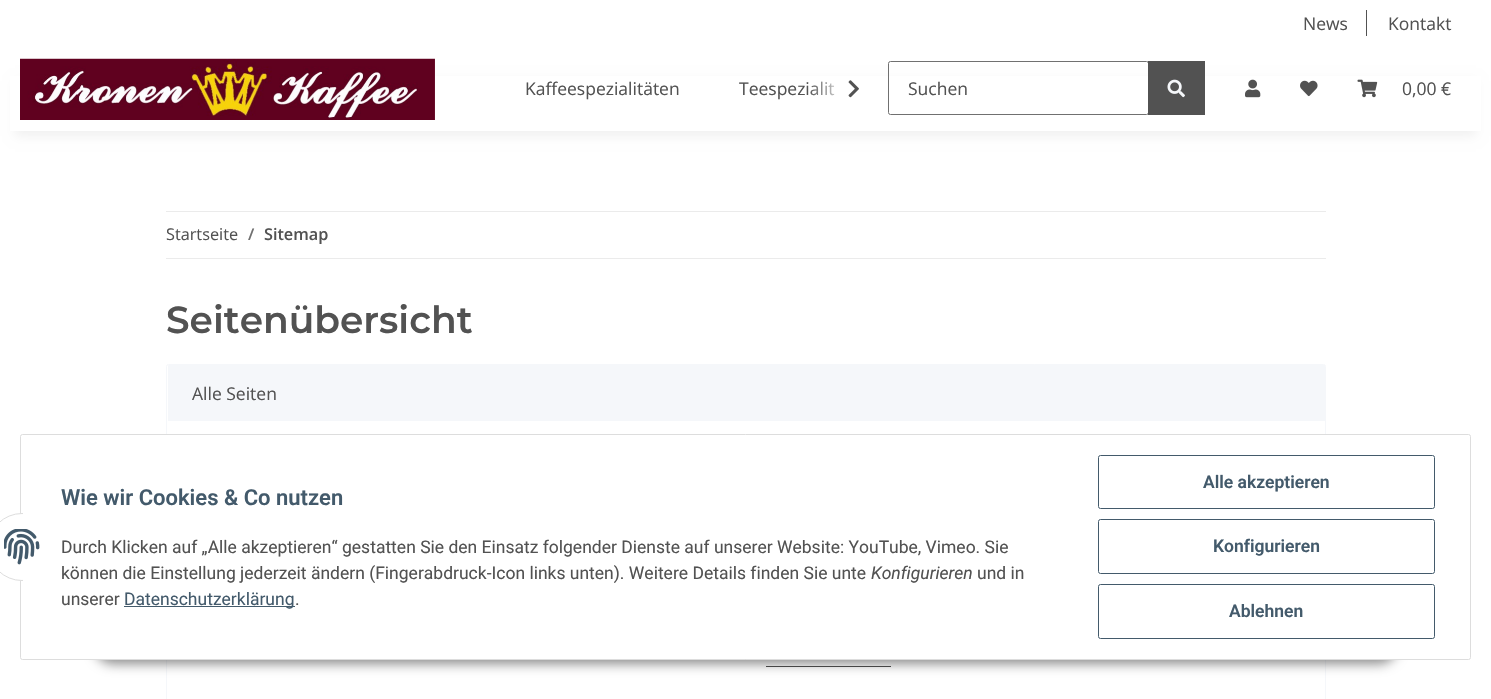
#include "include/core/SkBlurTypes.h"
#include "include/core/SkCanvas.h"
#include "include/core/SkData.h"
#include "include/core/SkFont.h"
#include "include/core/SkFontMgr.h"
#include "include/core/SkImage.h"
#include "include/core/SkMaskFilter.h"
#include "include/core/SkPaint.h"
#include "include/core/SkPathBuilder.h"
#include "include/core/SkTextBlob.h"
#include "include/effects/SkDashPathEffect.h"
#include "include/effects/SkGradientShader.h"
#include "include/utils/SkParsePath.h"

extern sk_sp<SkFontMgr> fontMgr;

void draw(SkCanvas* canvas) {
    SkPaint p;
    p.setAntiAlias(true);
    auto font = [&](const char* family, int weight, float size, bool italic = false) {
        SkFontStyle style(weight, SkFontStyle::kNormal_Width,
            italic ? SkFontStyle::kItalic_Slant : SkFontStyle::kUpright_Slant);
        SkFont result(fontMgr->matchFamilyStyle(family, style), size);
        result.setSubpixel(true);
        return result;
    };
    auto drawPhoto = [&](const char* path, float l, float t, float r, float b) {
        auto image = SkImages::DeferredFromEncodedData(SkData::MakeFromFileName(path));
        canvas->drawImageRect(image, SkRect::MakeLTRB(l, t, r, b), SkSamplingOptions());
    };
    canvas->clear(0xFFFFFFFF);
    auto font1 = font("Open Sans", 400, 17.5f);
    p.setColor(0xFF525252);
    canvas->drawString("News", 1303, 30, font1, p);
    canvas->drawRect(SkRect::MakeLTRB(1366, 10, 1367, 36), p);
    canvas->drawString("Kontakt", 1388, 30, font1, p);
    p.setColor(0x0F000000);
    p.setMaskFilter(SkMaskFilter::MakeBlur(kNormal_SkBlurStyle, 5.5f));
    canvas->drawRect(SkRect::MakeLTRB(15, 81, 1476, 136), p);
    p.setMaskFilter(nullptr);
    p.setColor(0xFFFFFFFF);
    canvas->drawRect(SkRect::MakeLTRB(10, 76, 1481, 131), p);
    drawPhoto("media/1.png", 20, 58, 435, 120);
    p.setColor(0xFF525252);
    canvas->drawString("Teespezialit", 739, 95, font1, p);
    {
        const SkColor colors[] = {0x03FFFFFF, 0xFFFFFFFF};
        const float stops[] = {0, 0.7f};
        const SkPoint ends[] = {{808, 89}, {868, 89}};
        p.setShader(SkGradientShader::MakeLinear(ends, colors, stops, 2, SkTileMode::kClamp));
        p.setAlpha(255);
    }
    canvas->drawRect(SkRect::MakeLTRB(811, 81, 835, 96), p);
    drawPhoto("media/2.png", 848, 80, 859, 98);
    p.setShader(nullptr);
    p.setColor(0xFF525252);
    canvas->drawString("Kaffeespezialitäten", 525, 95, font1, p);
    p.setStyle(SkPaint::kStroke_Style);
    p.setStrokeWidth(1);
    p.setColor(0xFF707070);
    canvas->drawRoundRect(SkRect::MakeLTRB(888.5f, 61.5f, 1148.5f, 114.5f), 2, 2, p);
    p.setStyle(SkPaint::kFill_Style);
    p.setColor(0xFF525252);
    canvas->drawString("Suchen", 908, 95, font1, p);
    canvas->drawRect(SkRect::MakeLTRB(1148, 61, 1205, 115), p);
    drawPhoto("media/3.png", 1167, 79, 1185, 98);
    drawPhoto("media/4.png", 1245, 79, 1261, 98);
    drawPhoto("media/5.png", 1300, 80, 1318, 97);
    drawPhoto("media/6.png", 1357, 79, 1378, 98);
    canvas->drawString("0,00 €", 1402, 95, font1, p);
    p.setColor(0xFFEBEBEB);
    canvas->drawRect(SkRect::MakeLTRB(166, 211, 1326, 212), p);
    canvas->drawRect(SkRect::MakeLTRB(166, 258, 1326, 259), p);
    auto font2 = font("Open Sans", 400, 16.25f);
    p.setColor(0xFF525252);
    canvas->drawString("Startseite", 166, 240, font2, p);
    auto font3 = font("Open Sans", 600, 16.25f);
    p.setColor(0xFF707070);
    canvas->drawString("/", 248, 240, font3, p);
    p.setColor(0xFF525252);
    canvas->drawString("Sitemap", 264, 240, font3, p);
    auto font4 = font("Montserrat", 600, 37.5f);
    canvas->drawString("Seitenübersicht", 166, 333, font4, p);
    p.setStyle(SkPaint::kStroke_Style);
    p.setColor(0xFFF5F7FA);
    canvas->drawRoundRect(SkRect::MakeLTRB(166.5f, 364.5f, 1325.5f, 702.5f), 2, 2, p);
    p.setStyle(SkPaint::kFill_Style);
    canvas->drawPath(SkPathBuilder().moveTo(169, 365).lineTo(1324, 365).cubicTo(1324.5f, 365, 1325, 365.5f, 1325, 366).lineTo(1325, 421).lineTo(168, 421).lineTo(168, 366).cubicTo(168, 365.5f, 168.5f, 365, 169, 365).close().detach(), p);
    p.setColor(0xFF525252);
    canvas->drawString("Alle Seiten", 192, 400, font1, p);
    canvas->drawRect(SkRect::MakeLTRB(766, 666, 891, 667), p);
    p.setColor(0x73000000);
    p.setMaskFilter(SkMaskFilter::MakeBlur(kNormal_SkBlurStyle, 6));
    canvas->drawRoundRect(SkRect::MakeLTRB(94, 624, 1398, 664), 20, 20, p);
    p.setMaskFilter(nullptr);
    p.setColor(0xFFFFFFFF);
    canvas->drawRoundRect(SkRect::MakeLTRB(20.5f, 434.5f, 1470.5f, 659.5f), 2, 2, p);
    p.setStyle(SkPaint::kStroke_Style);
    p.setColor(0xFFDDDDDD);
    canvas->drawRoundRect(SkRect::MakeLTRB(20.5f, 434.5f, 1470.5f, 659.5f), 2, 2, p);
    p.setStyle(SkPaint::kFill_Style);
    p.setColor(0xFFFFFFFF);
    canvas->drawCircle(22, 547, 33.5f, p);
    p.setStyle(SkPaint::kStroke_Style);
    p.setColor(0xFFDDDDDD);
    canvas->drawCircle(22, 547, 33.5f, p);
    p.setStyle(SkPaint::kFill_Style);
    p.setColor(0xFFFFFFFF);
    canvas->drawRect(SkRect::MakeLTRB(23, 513, 56, 581), p);
    drawPhoto("media/7.png", 4, 529, 40, 565);
    auto font5 = font("Roboto", 600, 22);
    p.setColor(0xFF435A6B);
    canvas->drawString("Wie wir Cookies & Co nutzen", 61, 505, font5, p);
    auto font6 = font("Roboto", 400, 17.5f);
    p.setColor(0xFF525252);
    canvas->drawString("Durch Klicken auf „Alle akzeptieren“ gestatten Sie den Einsatz folgender Dienste auf unserer Website: YouTube, Vimeo. Sie", 61, 553, font6, p);
    canvas->drawString("können die Einstellung jederzeit ändern (Fingerabdruck-Icon links unten). Weitere Details finden Sie unte", 61, 579, font6, p);
    auto font7 = font("Roboto", 400, 17.5f, true);
    canvas->drawString("Konfigurieren", 871, 579, font7, p);
    canvas->drawString("und in", 977, 579, font6, p);
    canvas->drawString("unserer", 61, 605, font6, p);
    p.setColor(0xFF435A6B);
    canvas->drawRect(SkRect::MakeLTRB(124, 606, 295, 607), p);
    canvas->drawString("Datenschutzerklärung", 124, 605, font6, p);
    p.setColor(0xFF525252);
    canvas->drawString(".", 295, 605, font6, p);
    p.setStyle(SkPaint::kStroke_Style);
    p.setColor(0xFF435A6B);
    canvas->drawRoundRect(SkRect::MakeLTRB(1098.5f, 455.5f, 1434.5f, 508.5f), 2, 2, p);
    auto font8 = font("Roboto", 600, 17.5f);
    p.setStyle(SkPaint::kFill_Style);
    canvas->drawString("Alle akzeptieren", 1203, 488, font8, p);
    p.setStyle(SkPaint::kStroke_Style);
    canvas->drawRoundRect(SkRect::MakeLTRB(1098.5f, 519.5f, 1434.5f, 573.5f), 2, 2, p);
    p.setStyle(SkPaint::kFill_Style);
    canvas->drawString("Konfigurieren", 1213, 552, font8, p);
    p.setStyle(SkPaint::kStroke_Style);
    canvas->drawRoundRect(SkRect::MakeLTRB(1098.5f, 584.5f, 1434.5f, 638.5f), 2, 2, p);
    p.setStyle(SkPaint::kFill_Style);
    canvas->drawString("Ablehnen", 1229, 617, font8, p);
}
